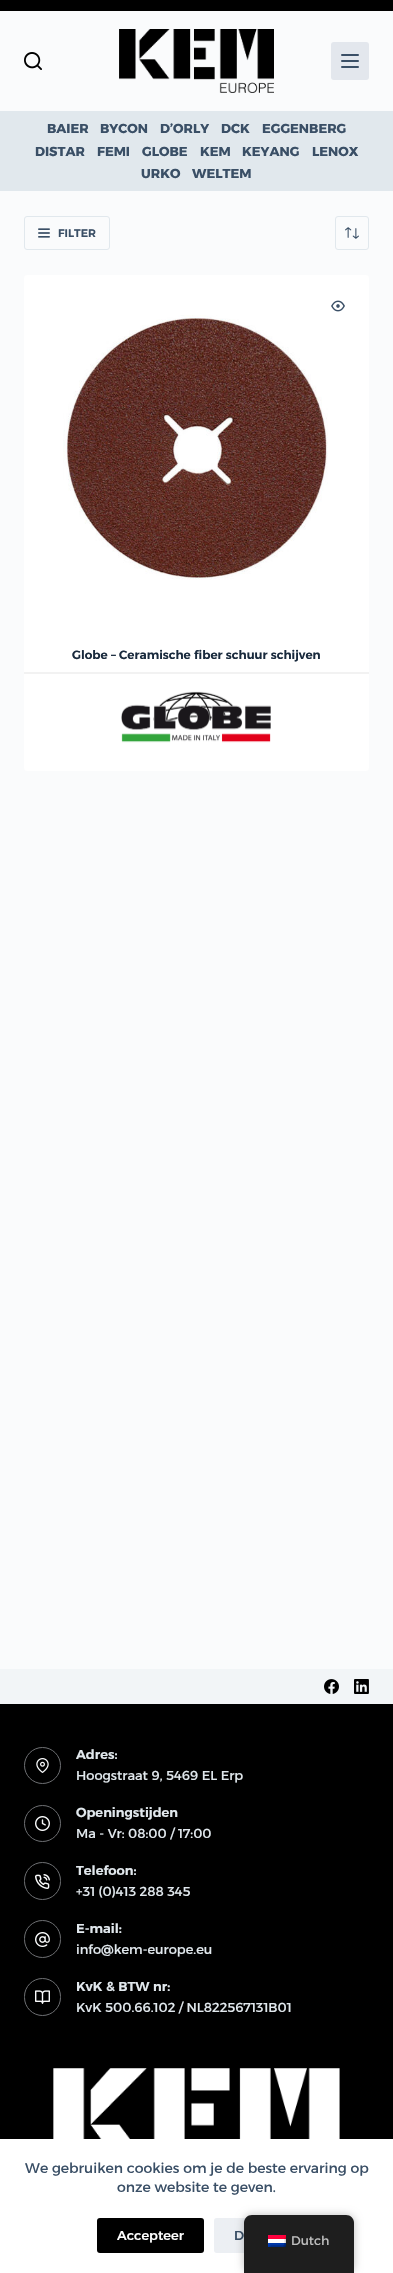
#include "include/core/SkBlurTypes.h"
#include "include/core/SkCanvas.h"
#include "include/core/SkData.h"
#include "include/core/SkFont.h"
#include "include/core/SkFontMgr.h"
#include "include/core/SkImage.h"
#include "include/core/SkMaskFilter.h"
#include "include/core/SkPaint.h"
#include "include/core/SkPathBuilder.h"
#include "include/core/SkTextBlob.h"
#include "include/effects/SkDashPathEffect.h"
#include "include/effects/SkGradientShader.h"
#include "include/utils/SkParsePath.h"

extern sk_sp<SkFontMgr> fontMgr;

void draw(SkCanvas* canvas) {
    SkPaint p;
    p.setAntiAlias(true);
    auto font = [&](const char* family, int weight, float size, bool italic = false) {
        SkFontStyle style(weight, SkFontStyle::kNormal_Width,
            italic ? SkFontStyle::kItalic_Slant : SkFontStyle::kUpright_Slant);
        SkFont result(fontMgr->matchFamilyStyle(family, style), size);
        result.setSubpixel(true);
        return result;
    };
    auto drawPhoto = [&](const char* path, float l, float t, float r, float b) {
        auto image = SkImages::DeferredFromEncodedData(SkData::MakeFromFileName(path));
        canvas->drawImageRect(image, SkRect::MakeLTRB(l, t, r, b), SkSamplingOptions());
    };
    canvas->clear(0xFFFAFBFC);
    p.setColor(0xFF000000);
    canvas->drawRect(SkRect::MakeLTRB(0, 0, 393, 11), p);
    drawPhoto("media/1.png", 24, 52, 42, 70);
    drawPhoto("media/2.png", 119, 29, 274, 93);
    p.setColor(0xFFE3E7ED);
    canvas->drawRoundRect(SkRect::MakeLTRB(331, 42, 369, 80), 3, 3, p);
    p.setColor(0xFF3A4F66);
    canvas->drawRoundRect(SkRect::MakeLTRB(341, 54, 359, 56), 1, 1, p);
    canvas->drawRoundRect(SkRect::MakeLTRB(341, 60, 359, 62), 1, 1, p);
    canvas->drawRoundRect(SkRect::MakeLTRB(341, 66, 359, 68), 1, 1, p);
    p.setColor(0xFFE1E8ED);
    canvas->drawRect(SkRect::MakeLTRB(0, 111, 393, 191), p);
    auto font1 = font("Alexandria", 700, 13);
    p.setColor(0xFF3A4F66);
    {
        const struct { const char* s; float x, y; } items[] = {
            {"BAIER", 47, 133},
            {"BYCON", 100, 133},
            {"D’ORLY", 160, 133},
            {"DCK", 221, 133},
            {"EGGENBERG", 262, 133},
            {"DISTAR", 35, 156},
            {"FEMI", 97, 156},
            {"GLOBE", 142, 156},
            {"KEM", 200, 156},
            {"KEYANG", 242, 156},
            {"LENOX", 312, 156},
            {"URKO", 141, 178},
            {"WELTEM", 192, 178},
        };
        for (auto [s, x, y] : items) {
            canvas->drawString(s, x, y, font1, p);
        }
    }
    p.setStyle(SkPaint::kStroke_Style);
    p.setStrokeWidth(1);
    p.setColor(0xFFE1E8ED);
    canvas->drawRoundRect(SkRect::MakeLTRB(24.5f, 216.5f, 109.5f, 249.5f), 2.5f, 2.5f, p);
    drawPhoto("media/3.png", 38, 228, 50, 238);
    auto font2 = font("Alexandria", 600, 11);
    p.setStyle(SkPaint::kFill_Style);
    p.setColor(0xFF3A4F66);
    canvas->drawString("FILTER", 58, 237, font2, p);
    p.setStyle(SkPaint::kStroke_Style);
    p.setColor(0xFFE1E8ED);
    canvas->drawRoundRect(SkRect::MakeLTRB(335.5f, 216.5f, 368.5f, 249.5f), 2.5f, 2.5f, p);
    drawPhoto("media/4.png", 345, 227, 359, 239);
    p.setStyle(SkPaint::kFill_Style);
    p.setColor(0xFFFFFFFF);
    canvas->drawRoundRect(SkRect::MakeLTRB(24, 275, 369, 771), 3, 3, p);
    drawPhoto("media/5.png", 331, 300, 345, 312);
    drawPhoto("media/6.png", 63, 315, 328, 580);
    auto font3 = font("Alexandria", 600, 12);
    p.setColor(0xFF192A3D);
    canvas->drawString("Globe – Ceramische fiber schuur schijven", 72, 659, font3, p);
    p.setColor(0xFFF2F2F2);
    canvas->drawRect(SkRect::MakeLTRB(24, 672, 369, 674), p);
    drawPhoto("media/7.png", 121, 691, 271, 743);
    p.setColor(0xFFF2F5F7);
    canvas->drawRect(SkRect::MakeLTRB(0, 1669, 393, 1704), p);
    drawPhoto("media/8.png", 324, 1679, 339, 1694);
    drawPhoto("media/9.png", 354, 1679, 369, 1694);
    p.setColor(0xFF000000);
    canvas->drawRect(SkRect::MakeLTRB(0, 1704, 393, 2139), p);
    p.setStyle(SkPaint::kStroke_Style);
    p.setColor(0xFF6D6F72);
    canvas->drawCircle(42.5f, 1765.5f, 18, p);
    drawPhoto("media/10.png", 36, 1758, 49, 1773);
    auto font4 = font("Alexandria", 600, 13);
    p.setStyle(SkPaint::kFill_Style);
    p.setColor(0xFFE1E8ED);
    canvas->drawString("Adres:", 76, 1759, font4, p);
    auto font5 = font("Alexandria", 400, 13);
    canvas->drawString("Hoogstraat 9, 5469 EL Erp", 76, 1780, font5, p);
    p.setStyle(SkPaint::kStroke_Style);
    p.setColor(0xFF6D6F72);
    canvas->drawCircle(42.5f, 1823.5f, 18, p);
    drawPhoto("media/11.png", 35, 1816, 50, 1831);
    p.setStyle(SkPaint::kFill_Style);
    p.setColor(0xFFE1E8ED);
    canvas->drawString("Openingstijden", 76, 1817, font4, p);
    canvas->drawString("Ma - Vr: 08:00 / 17:00", 76, 1838, font5, p);
    p.setStyle(SkPaint::kStroke_Style);
    p.setColor(0xFF6D6F72);
    canvas->drawRoundRect(SkRect::MakeLTRB(24.5f, 1862.5f, 60.5f, 1899.5f), 18, 18, p);
    drawPhoto("media/12.png", 35, 1874, 50, 1889);
    p.setStyle(SkPaint::kFill_Style);
    p.setColor(0xFFE1E8ED);
    canvas->drawString("Telefoon:", 76, 1875, font4, p);
    canvas->drawString("+31 (0)413 288 345", 76, 1896, font5, p);
    p.setStyle(SkPaint::kStroke_Style);
    p.setColor(0xFF6D6F72);
    canvas->drawRoundRect(SkRect::MakeLTRB(24.5f, 1920.5f, 60.5f, 1957.5f), 18, 18, p);
    drawPhoto("media/13.png", 35, 1932, 50, 1947);
    p.setStyle(SkPaint::kFill_Style);
    p.setColor(0xFFE1E8ED);
    canvas->drawString("E-mail:", 76, 1933, font4, p);
    canvas->drawString("info@kem-europe.eu", 76, 1954, font5, p);
    p.setStyle(SkPaint::kStroke_Style);
    p.setColor(0xFF6D6F72);
    canvas->drawRoundRect(SkRect::MakeLTRB(24.5f, 1978.5f, 60.5f, 2015.5f), 18, 18, p);
    drawPhoto("media/14.png", 35, 1990, 50, 2004);
    p.setStyle(SkPaint::kFill_Style);
    p.setColor(0xFFE1E8ED);
    canvas->drawString("KvK & BTW nr:", 76, 1991, font4, p);
    canvas->drawString("KvK 500.66.102 / NL822567131B01", 76, 2012, font5, p);
    drawPhoto("media/15.png", 53, 2068, 340, 2139);
    p.setColor(0xFFFFFFFF);
    canvas->drawRect(SkRect::MakeLTRB(0, 2139, 393, 2273), p);
    auto font6 = font("Alexandria", 400, 14);
    p.setColor(0xFF3A4F66);
    canvas->drawString("We gebruiken cookies om je de beste ervaring op", 25, 2173, font6, p);
    canvas->drawString("onze website te geven.", 117, 2192, font6, p);
    p.setColor(0xFF000000);
    canvas->drawRoundRect(SkRect::MakeLTRB(97, 2218, 204, 2253), 3, 3, p);
    auto font7 = font("Alexandria", 500, 13);
    p.setColor(0xFFFFFFFF);
    canvas->drawString("Accepteer", 117, 2240, font7, p);
    p.setColor(0xFFECEFF3);
    canvas->drawRoundRect(SkRect::MakeLTRB(214, 2218, 296, 2253), 3, 3, p);
    p.setColor(0xFF3A4F66);
    canvas->drawString("D", 234, 2240, font7, p);
    p.setColor(0x40000000);
    p.setMaskFilter(SkMaskFilter::MakeBlur(kNormal_SkBlurStyle, 4));
    canvas->drawRoundRect(SkRect::MakeLTRB(244, 2215, 354, 2273), 8, 8, p);
    p.setMaskFilter(nullptr);
    p.setColor(0xFF1E1E1E);
    canvas->drawPath(SkPathBuilder().moveTo(252, 2215).lineTo(346, 2215).cubicTo(350.5f, 2215, 354, 2218.5f, 354, 2223).lineTo(354, 2273).lineTo(244, 2273).lineTo(244, 2223).cubicTo(244, 2218.5f, 247.5f, 2215, 252, 2215).close().detach(), p);
    drawPhoto("media/16.png", 268, 2235, 286, 2247);
    auto font8 = font("Alexandria", 400, 12.5f);
    p.setColor(0xFFBDBDBD);
    canvas->drawString("Dutch", 291, 2245, font8, p);
}
